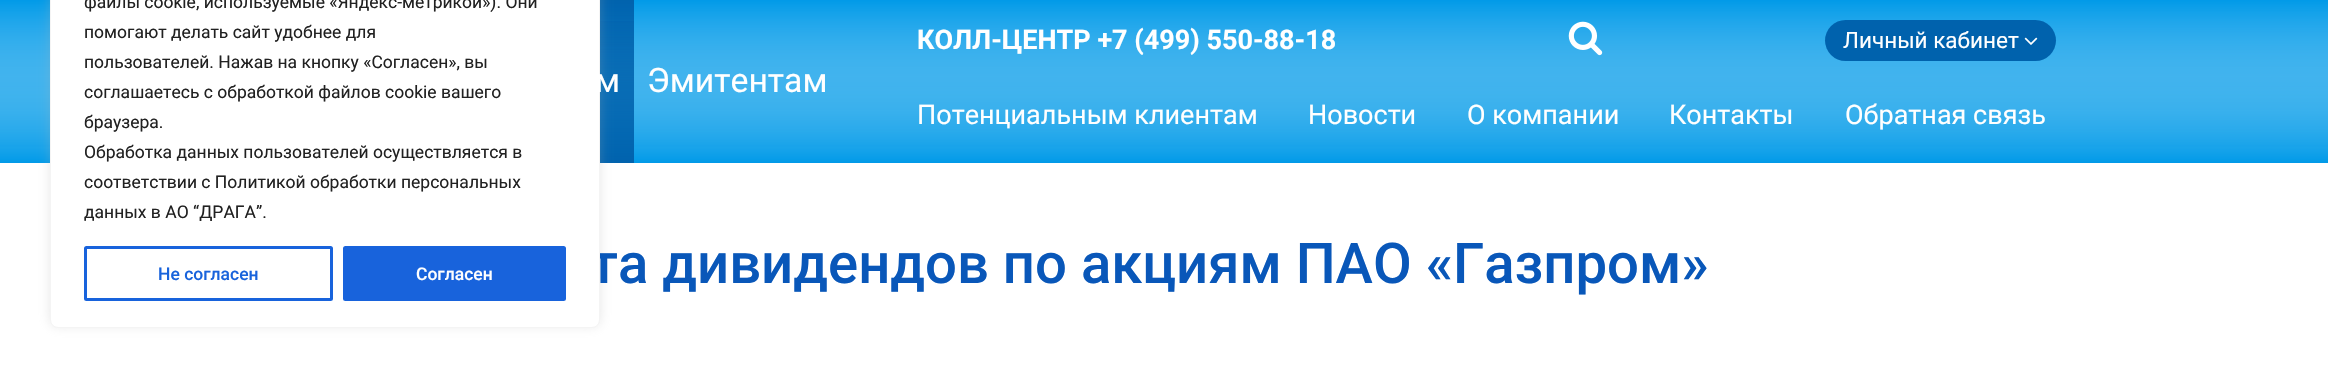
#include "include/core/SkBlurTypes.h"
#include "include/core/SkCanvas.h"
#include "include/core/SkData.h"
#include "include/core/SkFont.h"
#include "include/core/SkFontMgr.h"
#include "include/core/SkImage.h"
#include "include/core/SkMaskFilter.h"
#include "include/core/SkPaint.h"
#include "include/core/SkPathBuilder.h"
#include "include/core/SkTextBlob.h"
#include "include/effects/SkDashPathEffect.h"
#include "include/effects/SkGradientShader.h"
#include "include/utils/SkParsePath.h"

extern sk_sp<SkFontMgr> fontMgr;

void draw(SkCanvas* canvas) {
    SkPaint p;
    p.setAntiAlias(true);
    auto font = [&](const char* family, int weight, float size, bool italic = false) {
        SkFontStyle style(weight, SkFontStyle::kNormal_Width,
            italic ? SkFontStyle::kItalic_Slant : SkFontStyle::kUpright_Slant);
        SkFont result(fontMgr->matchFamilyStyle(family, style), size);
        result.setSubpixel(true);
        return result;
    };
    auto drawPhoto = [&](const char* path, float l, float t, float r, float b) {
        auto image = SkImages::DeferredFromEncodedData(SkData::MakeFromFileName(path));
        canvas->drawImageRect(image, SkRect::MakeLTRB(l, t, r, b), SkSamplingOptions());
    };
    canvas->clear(0xFFFFFFFF);
    {
        const SkColor colors[] = {0xFFFFFFFF, 0xFF019AE8};
        const float stops[] = {0, 1};
        const SkPoint ends[] = {{1164, 0}, {1164, 163}};
        p.setShader(SkGradientShader::MakeLinear(ends, colors, stops, 2, SkTileMode::kClamp));
        p.setAlpha(255);
    }
    canvas->drawRect(SkRect::MakeLTRB(0, 2, 2328, 163), p);
    {
        const SkColor colors[] = {0xFF019AE8, 0x00019AE8};
        const float stops[] = {0, 1};
        const SkPoint ends[] = {{1164, 0}, {1164, 163}};
        p.setShader(SkGradientShader::MakeLinear(ends, colors, stops, 2, SkTileMode::kClamp));
        p.setAlpha(255);
    }
    canvas->drawRect(SkRect::MakeLTRB(0, 0, 2328, 147), p);
    {
        const SkColor colors[] = {0xFF0062AD, 0x4D0062AD};
        const float stops[] = {0, 1};
        const SkPoint ends[] = {{521, 0}, {521, 163}};
        p.setShader(SkGradientShader::MakeLinear(ends, colors, stops, 2, SkTileMode::kClamp));
        p.setAlpha(255);
    }
    canvas->drawRect(SkRect::MakeLTRB(600, 0, 634, 162), p);
    {
        const SkColor colors[] = {0x4D0062AD, 0xFF0062AD};
        const float stops[] = {0, 1};
        const SkPoint ends[] = {{521, 0}, {521, 163}};
        p.setShader(SkGradientShader::MakeLinear(ends, colors, stops, 2, SkTileMode::kClamp));
        p.setAlpha(255);
    }
    canvas->drawRect(SkRect::MakeLTRB(600, 21, 634, 163), p);
    p.setShader(nullptr);
    p.setColor(0x4DACABAB);
    p.setMaskFilter(SkMaskFilter::MakeBlur(kNormal_SkBlurStyle, 6));
    canvas->drawRoundRect(SkRect::MakeLTRB(50, -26, 600, 326), 8, 8, p);
    p.setMaskFilter(nullptr);
    auto font1 = font("Roboto", 500, 56.25f);
    p.setColor(0xFF0957B9);
    canvas->drawString("та дивидендов по акциям ПАО «Газпром»", 590, 283, font1, p);
    p.setColor(0xFFFFFFFF);
    canvas->drawRoundRect(SkRect::MakeLTRB(50.5f, -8.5f, 599.5f, 327.5f), 7.5f, 7.5f, p);
    p.setStyle(SkPaint::kStroke_Style);
    p.setStrokeWidth(1);
    p.setColor(0xFFF4F4F4);
    canvas->drawRoundRect(SkRect::MakeLTRB(50.5f, -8.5f, 599.5f, 327.5f), 7.5f, 7.5f, p);
    auto font2 = font("Roboto", 400, 17.5f);
    p.setStyle(SkPaint::kFill_Style);
    p.setColor(0xFF212121);
    {
        const struct { const char* s; float x, y; } items[] = {
            {"файлы cookie, используемые «Яндекс-метрикой»). Они", 84, 8},
            {"помогают делать сайт удобнее для", 84, 38},
            {"пользователей. Нажав на кнопку «Согласен», вы", 84, 68},
            {"соглашаетесь с обработкой файлов cookie вашего", 84, 98},
            {"браузера.", 84, 128},
            {"Обработка данных пользователей осуществляется в", 84, 158},
            {"соответствии с Политикой обработки персональных", 84, 188},
            {"данных в АО “ДРАГА”.", 84, 218},
        };
        for (auto [s, x, y] : items) {
            canvas->drawString(s, x, y, font2, p);
        }
    }
    p.setStyle(SkPaint::kStroke_Style);
    p.setStrokeWidth(3);
    p.setColor(0xFF1863DC);
    canvas->drawRoundRect(SkRect::MakeLTRB(85.5f, 247.5f, 331.5f, 299.5f), 1, 1, p);
    auto font3 = font("Roboto", 500, 17.5f);
    p.setStyle(SkPaint::kFill_Style);
    canvas->drawString("Не согласен", 158, 280, font3, p);
    canvas->drawRoundRect(SkRect::MakeLTRB(344.5f, 247.5f, 564.5f, 299.5f), 1, 1, p);
    p.setStyle(SkPaint::kStroke_Style);
    canvas->drawRoundRect(SkRect::MakeLTRB(344.5f, 247.5f, 564.5f, 299.5f), 1, 1, p);
    p.setStyle(SkPaint::kFill_Style);
    p.setColor(0xFFFFFFFF);
    canvas->drawString("Согласен", 416, 280, font3, p);
    auto font4 = font("Roboto", 400, 33.75f);
    canvas->drawString("м", 595, 92, font4, p);
    canvas->drawString("Эмитентам", 647, 92, font4, p);
    auto font5 = font("Roboto", 700, 27);
    canvas->drawString("КОЛЛ-ЦЕНТР +7 (499) 550-88-18", 917, 49, font5, p);
    drawPhoto("media/1.png", 1568, 21, 1603, 56);
    p.setColor(0xFF0062AD);
    canvas->drawRoundRect(SkRect::MakeLTRB(1825, 20, 2056, 61), 20.5f, 20.5f, p);
    auto font6 = font("Roboto", 400, 22.5f);
    p.setColor(0xFFFFFFFF);
    canvas->drawString("Личный кабинет", 1843, 48, font6, p);
    drawPhoto("media/2.png", 2024, 37, 2038, 45);
    auto font7 = font("Roboto", 400, 27);
    {
        const struct { const char* s; float x, y; } items[] = {
            {"Потенциальным клиентам", 917, 124},
            {"Новости", 1308, 124},
            {"О компании", 1467, 124},
            {"Контакты", 1669, 124},
            {"Обратная связь", 1845, 124},
        };
        for (auto [s, x, y] : items) {
            canvas->drawString(s, x, y, font7, p);
        }
    }
}
